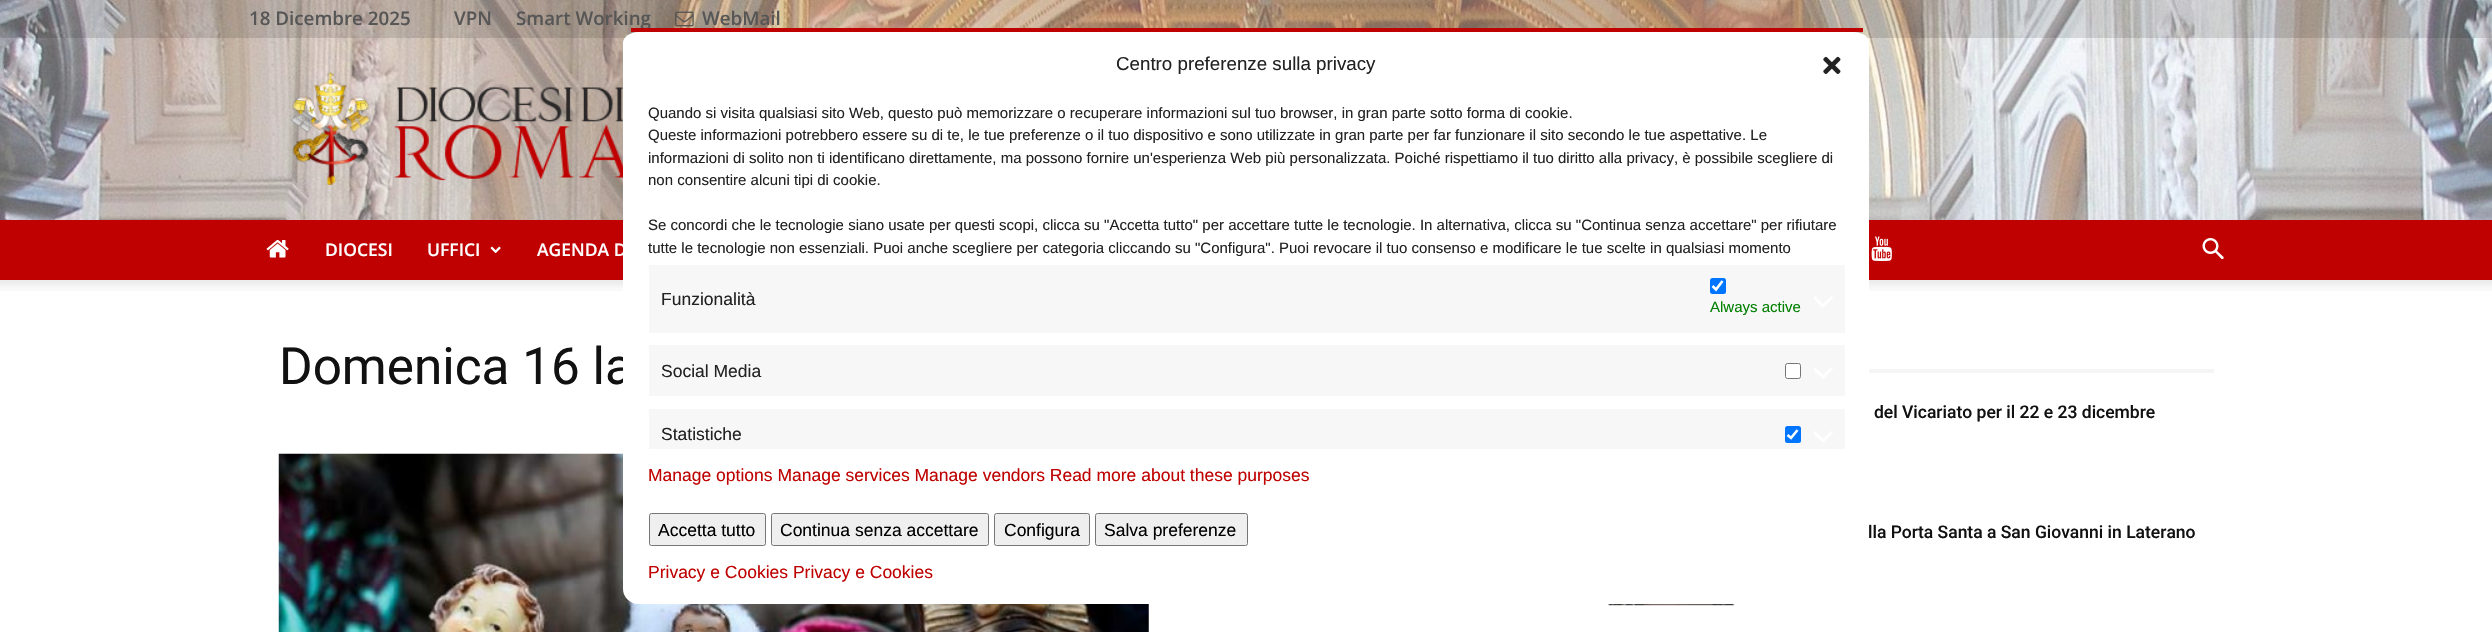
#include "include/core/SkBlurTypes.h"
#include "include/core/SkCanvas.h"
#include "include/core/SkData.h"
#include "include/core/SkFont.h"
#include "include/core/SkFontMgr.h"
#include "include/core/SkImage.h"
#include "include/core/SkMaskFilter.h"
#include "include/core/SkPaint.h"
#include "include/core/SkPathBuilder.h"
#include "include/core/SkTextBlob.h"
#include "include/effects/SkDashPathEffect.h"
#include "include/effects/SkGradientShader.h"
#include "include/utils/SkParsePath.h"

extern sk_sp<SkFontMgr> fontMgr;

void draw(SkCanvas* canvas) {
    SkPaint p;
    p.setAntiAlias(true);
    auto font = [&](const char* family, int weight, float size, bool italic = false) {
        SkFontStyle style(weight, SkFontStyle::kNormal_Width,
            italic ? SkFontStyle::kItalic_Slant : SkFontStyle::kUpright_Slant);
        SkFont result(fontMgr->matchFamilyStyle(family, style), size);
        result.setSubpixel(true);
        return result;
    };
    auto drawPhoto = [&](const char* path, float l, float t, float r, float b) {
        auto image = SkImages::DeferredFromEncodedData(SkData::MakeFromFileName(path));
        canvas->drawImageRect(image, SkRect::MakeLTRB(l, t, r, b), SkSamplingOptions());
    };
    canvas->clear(0xFFFFFFFF);
    drawPhoto("media/1.png", 0, 0, 2492, 220);
    p.setColor(0x1F000000);
    canvas->drawRect(SkRect::MakeLTRB(0, 0, 2492, 38), p);
    auto font1 = font("Open Sans", 600, 18.75f);
    p.setColor(0xFF565656);
    {
        const struct { const char* s; float x, y; } items[] = {
            {"18 Dicembre 2025", 249, 25},
            {"VPN", 454, 25},
            {"Smart Working", 516, 25},
        };
        for (auto [s, x, y] : items) {
            canvas->drawString(s, x, y, font1, p);
        }
    }
    drawPhoto("media/2.png", 675, 11, 694, 27);
    canvas->drawString("WebMail", 702, 25, font1, p);
    drawPhoto("media/3.png", 291, 72, 623, 185);
    p.setColor(0xFFBF0101);
    canvas->drawRect(SkRect::MakeLTRB(0, 220, 2492, 280), p);
    drawPhoto("media/4.png", 266, 240, 289, 258);
    auto font2 = font("Open Sans", 600, 17.5f);
    p.setColor(0xFFFFFFFF);
    canvas->drawString("DIOCESI", 325, 256, font2, p);
    canvas->drawString("UFFICI", 427, 256, font2, p);
    drawPhoto("media/5.png", 490, 246, 501, 254);
    canvas->drawString("AGENDA D", 537, 256, font2, p);
    drawPhoto("media/6.png", 1871, 236, 1892, 261);
    drawPhoto("media/7.png", 2202, 238, 2224, 260);
    drawPhoto("media/8.png", 0, 280, 2492, 291);
    auto font3 = font("Roboto", 400, 51.25f);
    p.setColor(0xFF111111);
    canvas->drawString("Domenica 16 la", 279, 384, font3, p);
    drawPhoto("media/9.png", 278, 453, 1149, 632);
    p.setColor(0xFFF5F5F5);
    canvas->drawRect(SkRect::MakeLTRB(1869, 369, 2214, 373), p);
    auto font4 = font("Roboto", 500, 17.5f);
    p.setColor(0xFF111111);
    canvas->drawString("del Vicariato per il 22 e 23 dicembre", 1874, 418, font4, p);
    canvas->drawString("lla Porta Santa a San Giovanni in Laterano", 1868, 538, font4, p);
    drawPhoto("media/10.png", 1608, 604, 1735, 606);
    p.setColor(0xFFFFFFFF);
    canvas->drawPath(SkPathBuilder().moveTo(638, 32).lineTo(1854, 32).cubicTo(1863, 32, 1869, 37, 1869, 43).lineTo(1869, 589).cubicTo(1869, 597, 1863, 604, 1854, 604).lineTo(638, 604).cubicTo(630, 604, 623, 597, 623, 589).lineTo(623, 43).cubicTo(623, 37, 630, 32, 638, 32).close().detach(), p);
    p.setColor(0xFFBF0101);
    canvas->drawRect(SkRect::MakeLTRB(631, 28, 1863, 32), p);
    auto font5 = font("Liberation Sans", 400, 18.75f);
    p.setColor(0xFF222222);
    canvas->drawString("Centro preferenze sulla privacy", 1116, 70, font5, p);
    drawPhoto("media/11.png", 1823, 56, 1841, 74);
    auto font6 = font("Liberation Sans", 400, 15);
    {
        const struct { const char* s; float x, y; } items[] = {
            {"Quando si visita qualsiasi sito Web, questo può memorizzare o recuperare informazioni sul tuo browser, in gran parte sotto forma di cookie.", 648, 118},
            {"Queste informazioni potrebbero essere su di te, le tue preferenze o il tuo dispositivo e sono utilizzate in gran parte per far funzionare il sito secondo le tue aspettative. Le", 648, 140},
            {"informazioni di solito non ti identificano direttamente, ma possono fornire un'esperienza Web più personalizzata. Poiché rispettiamo il tuo diritto alla privacy, è possibile scegliere di", 648, 163},
            {"non consentire alcuni tipi di cookie.", 648, 185},
            {"Se concordi che le tecnologie siano usate per questi scopi, clicca su \"Accetta tutto\" per accettare tutte le tecnologie. In alternativa, clicca su \"Continua senza accettare\" per rifiutare", 648, 230},
            {"tutte le tecnologie non essenziali. Puoi anche scegliere per categoria cliccando su \"Configura\". Puoi revocare il tuo consenso e modificare le tue scelte in qualsiasi momento", 648, 253},
        };
        for (auto [s, x, y] : items) {
            canvas->drawString(s, x, y, font6, p);
        }
    }
    p.setColor(0xFFF7F7F7);
    canvas->drawRect(SkRect::MakeLTRB(649, 265, 1845, 333), p);
    auto font7 = font("Liberation Sans", 400, 17.5f);
    p.setColor(0xFF222222);
    canvas->drawString("Funzionalità", 661, 305, font7, p);
    p.setColor(0xFF0075FF);
    canvas->drawRoundRect(SkRect::MakeLTRB(1710, 278, 1726, 294), 2.5f, 2.5f, p);
    p.setStyle(SkPaint::kStroke_Style);
    p.setStrokeWidth(2.6f);
    p.setColor(0xFFFFFFFF);
    canvas->drawPath(SkPathBuilder().moveTo(1712.5f, 286).lineTo(1716, 289.5f).lineTo(1722.5f, 281).detach(), p);
    p.setStyle(SkPaint::kFill_Style);
    p.setColor(0xFF008000);
    canvas->drawString("Always active", 1710, 312, font6, p);
    drawPhoto("media/12.png", 1814, 296, 1833, 307);
    p.setColor(0xFFF7F7F7);
    canvas->drawRect(SkRect::MakeLTRB(649, 345, 1845, 396), p);
    p.setColor(0xFF222222);
    canvas->drawString("Social Media", 661, 377, font7, p);
    p.setColor(0xFFFFFFFF);
    canvas->drawRoundRect(SkRect::MakeLTRB(1785.5f, 363.5f, 1800.5f, 378.5f), 2, 2, p);
    p.setStyle(SkPaint::kStroke_Style);
    p.setStrokeWidth(1);
    p.setColor(0xFF767676);
    canvas->drawRoundRect(SkRect::MakeLTRB(1785.5f, 363.5f, 1800.5f, 378.5f), 2, 2, p);
    drawPhoto("media/13.png", 1814, 368, 1833, 379);
    p.setStyle(SkPaint::kFill_Style);
    p.setColor(0xFFF7F7F7);
    canvas->drawRect(SkRect::MakeLTRB(649, 409, 1845, 449), p);
    p.setColor(0xFF222222);
    canvas->drawString("Statistiche", 661, 440, font7, p);
    p.setColor(0xFF0075FF);
    canvas->drawRoundRect(SkRect::MakeLTRB(1785, 426, 1801, 443), 2.5f, 2.5f, p);
    p.setStyle(SkPaint::kStroke_Style);
    p.setStrokeWidth(2.6f);
    p.setColor(0xFFFFFFFF);
    canvas->drawPath(SkPathBuilder().moveTo(1787.5f, 435).lineTo(1791, 438).lineTo(1797.5f, 430).detach(), p);
    drawPhoto("media/12.png", 1814, 431, 1833, 442);
    p.setStyle(SkPaint::kFill_Style);
    p.setColor(0xFFBF0101);
    canvas->drawString("Manage options Manage services Manage vendors Read more about these purposes", 648, 481, font7, p);
    p.setColor(0xFFEFEFEF);
    canvas->drawRoundRect(SkRect::MakeLTRB(649.5f, 513.5f, 765.5f, 545.5f), 2, 2, p);
    p.setStyle(SkPaint::kStroke_Style);
    p.setStrokeWidth(1);
    p.setColor(0xFF767676);
    canvas->drawRoundRect(SkRect::MakeLTRB(649.5f, 513.5f, 765.5f, 545.5f), 2, 2, p);
    p.setStyle(SkPaint::kFill_Style);
    p.setColor(0xFF000000);
    canvas->drawString("Accetta tutto", 658, 536, font7, p);
    p.setColor(0xFFEFEFEF);
    canvas->drawRoundRect(SkRect::MakeLTRB(771.5f, 513.5f, 988.5f, 545.5f), 2, 2, p);
    p.setStyle(SkPaint::kStroke_Style);
    p.setColor(0xFF767676);
    canvas->drawRoundRect(SkRect::MakeLTRB(771.5f, 513.5f, 988.5f, 545.5f), 2, 2, p);
    p.setStyle(SkPaint::kFill_Style);
    p.setColor(0xFF000000);
    canvas->drawString("Continua senza accettare", 780, 536, font7, p);
    p.setColor(0xFFEFEFEF);
    canvas->drawRoundRect(SkRect::MakeLTRB(994.5f, 513.5f, 1089.5f, 545.5f), 2, 2, p);
    p.setStyle(SkPaint::kStroke_Style);
    p.setColor(0xFF767676);
    canvas->drawRoundRect(SkRect::MakeLTRB(994.5f, 513.5f, 1089.5f, 545.5f), 2, 2, p);
    p.setStyle(SkPaint::kFill_Style);
    p.setColor(0xFF000000);
    canvas->drawString("Configura", 1004, 536, font7, p);
    p.setColor(0xFFEFEFEF);
    canvas->drawRoundRect(SkRect::MakeLTRB(1095.5f, 513.5f, 1247.5f, 545.5f), 2, 2, p);
    p.setStyle(SkPaint::kStroke_Style);
    p.setColor(0xFF767676);
    canvas->drawRoundRect(SkRect::MakeLTRB(1095.5f, 513.5f, 1247.5f, 545.5f), 2, 2, p);
    p.setStyle(SkPaint::kFill_Style);
    p.setColor(0xFF000000);
    canvas->drawString("Salva preferenze", 1104, 536, font7, p);
    p.setColor(0xFFBF0101);
    canvas->drawString("Privacy e Cookies Privacy e Cookies", 648, 578, font7, p);
}
